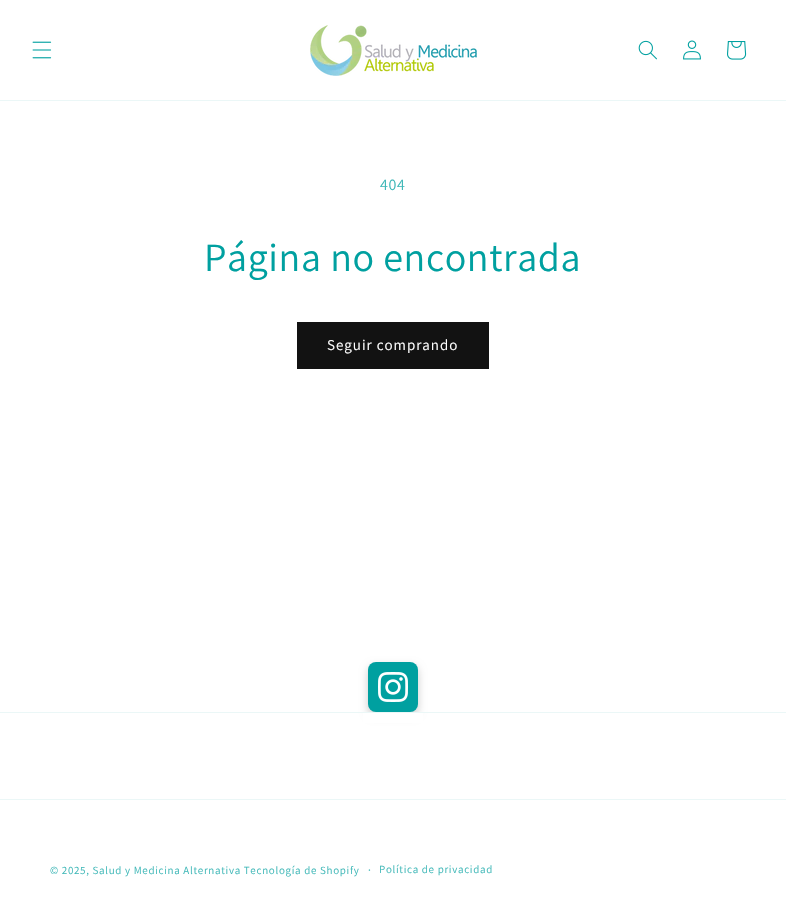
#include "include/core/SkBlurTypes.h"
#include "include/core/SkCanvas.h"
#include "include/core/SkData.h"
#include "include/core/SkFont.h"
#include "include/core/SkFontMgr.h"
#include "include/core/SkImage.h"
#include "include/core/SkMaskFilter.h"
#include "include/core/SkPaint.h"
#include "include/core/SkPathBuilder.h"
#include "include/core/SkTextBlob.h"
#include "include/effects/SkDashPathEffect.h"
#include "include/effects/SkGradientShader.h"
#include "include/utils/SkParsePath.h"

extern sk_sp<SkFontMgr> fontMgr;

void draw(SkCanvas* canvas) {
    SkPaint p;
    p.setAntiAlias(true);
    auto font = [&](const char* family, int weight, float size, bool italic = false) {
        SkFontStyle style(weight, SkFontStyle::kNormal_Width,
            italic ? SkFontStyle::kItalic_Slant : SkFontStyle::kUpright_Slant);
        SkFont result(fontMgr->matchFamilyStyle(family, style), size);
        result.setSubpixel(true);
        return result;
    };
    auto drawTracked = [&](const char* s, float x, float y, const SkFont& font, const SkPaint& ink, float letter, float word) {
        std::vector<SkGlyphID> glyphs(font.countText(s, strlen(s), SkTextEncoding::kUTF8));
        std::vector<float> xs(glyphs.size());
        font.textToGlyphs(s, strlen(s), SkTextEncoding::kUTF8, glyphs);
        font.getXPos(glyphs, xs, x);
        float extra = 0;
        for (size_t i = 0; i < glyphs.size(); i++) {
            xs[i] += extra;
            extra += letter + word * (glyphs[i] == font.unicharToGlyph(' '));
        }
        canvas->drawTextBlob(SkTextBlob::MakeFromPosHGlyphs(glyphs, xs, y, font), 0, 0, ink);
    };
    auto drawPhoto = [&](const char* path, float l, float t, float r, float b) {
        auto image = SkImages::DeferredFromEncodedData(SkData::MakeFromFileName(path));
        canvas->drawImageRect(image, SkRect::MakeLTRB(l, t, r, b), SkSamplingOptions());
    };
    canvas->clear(0xFFFFFFFF);
    p.setColor(0xFFEBF7F7);
    canvas->drawRect(SkRect::MakeLTRB(0, 100, 786, 101), p);
    drawPhoto("media/1.png", 32, 41, 52, 59);
    drawPhoto("media/2.png", 310, 25, 477, 76);
    drawPhoto("media/3.png", 638, 40, 657, 60);
    drawPhoto("media/4.png", 683, 40, 701, 60);
    drawPhoto("media/5.png", 727, 41, 747, 60);
    auto font1 = font("Assistant", 400, 16);
    p.setColor(0xFF40B8B8);
    drawTracked("404", 380, 190, font1, p, 0.6f, 0);
    auto font2 = font("Assistant", 400, 40);
    p.setColor(0xFF00A0A0);
    drawTracked("Página no encontrada", 204, 271, font2, p, 0.6f, 0);
    p.setColor(0xFF121212);
    canvas->drawRect(SkRect::MakeLTRB(297, 322, 489, 369), p);
    auto font3 = font("Assistant", 400, 15);
    p.setColor(0xFFFFFFFF);
    drawTracked("Seguir comprando", 327, 350, font3, p, 1, 0);
    p.setColor(0x33000000);
    p.setMaskFilter(SkMaskFilter::MakeBlur(kNormal_SkBlurStyle, 4));
    canvas->drawRoundRect(SkRect::MakeLTRB(368, 666, 418, 716), 8, 8, p);
    p.setMaskFilter(nullptr);
    p.setColor(0xFF00A0A0);
    canvas->drawRoundRect(SkRect::MakeLTRB(368, 662, 418, 712), 8, 8, p);
    drawPhoto("media/6.png", 378, 672, 408, 702);
    {
        const struct { float l, t, r, b; SkColor color; } items[] = {
            {363, 713, 423, 723, 0xFFFFFFFF},
            {0, 712, 786, 713, 0xFFEBF7F7},
            {0, 799, 786, 800, 0xFFEBF7F7},
        };
        for (auto [l, t, r, b, color] : items) {
            p.setColor(color);
            canvas->drawRect(SkRect::MakeLTRB(l, t, r, b), p);
        }
    }
    auto font4 = font("Assistant", 400, 11);
    p.setColor(0xFF40B8B8);
    drawTracked("© 2025, Salud y Medicina Alternativa Tecnología de Shopify", 50, 874, font4, p, 0.7f, 0);
    auto font5 = font("Assistant", 400, 12);
    drawTracked("·", 368, 874, font5, p, 0.7f, 0);
    drawTracked("Política de privacidad", 379, 873, font4, p, 0.7f, 0);
}
